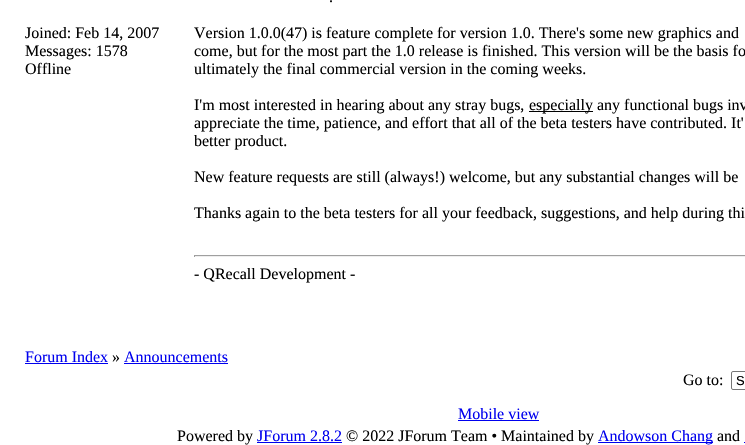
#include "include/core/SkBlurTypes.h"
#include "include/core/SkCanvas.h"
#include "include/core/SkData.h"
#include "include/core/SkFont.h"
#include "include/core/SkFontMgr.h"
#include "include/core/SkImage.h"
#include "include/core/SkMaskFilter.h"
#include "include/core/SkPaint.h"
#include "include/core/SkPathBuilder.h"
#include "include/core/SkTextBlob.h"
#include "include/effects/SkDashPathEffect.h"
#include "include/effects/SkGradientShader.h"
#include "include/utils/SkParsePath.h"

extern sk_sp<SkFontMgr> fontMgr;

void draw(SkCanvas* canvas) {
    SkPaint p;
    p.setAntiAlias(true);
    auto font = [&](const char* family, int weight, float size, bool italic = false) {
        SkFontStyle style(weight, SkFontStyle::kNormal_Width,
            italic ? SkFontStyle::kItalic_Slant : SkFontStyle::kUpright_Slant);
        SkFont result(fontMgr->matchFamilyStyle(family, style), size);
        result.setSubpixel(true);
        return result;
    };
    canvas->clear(0xFFFFFFFF);
    auto font1 = font("Liberation Serif", 400, 16);
    p.setColor(0xFF000000);
    {
        const struct { const char* s; float x, y; } items[] = {
            {"Joined: Feb 14, 2007", 25, 38},
            {"Messages: 1578", 25, 56},
            {"Offline", 25, 74},
            {".", 329, 2},
            {"Version 1.0.0(47) is feature complete for version 1.0. There's some new graphics and", 194, 38},
            {"come, but for the most part the 1.0 release is finished. This version will be the basis fo", 194, 56},
            {"ultimately the final commercial version in the coming weeks.", 194, 74},
            {"I'm most interested in hearing about any stray bugs,", 194, 110},
        };
        for (auto [s, x, y] : items) {
            canvas->drawString(s, x, y, font1, p);
        }
    }
    canvas->drawRect(SkRect::MakeLTRB(529, 111, 593, 112), p);
    {
        const struct { const char* s; float x, y; } items[] = {
            {"especially any functional bugs inv", 529, 110},
            {"appreciate the time, patience, and effort that all of the beta testers have contributed. It'", 194, 128},
            {"better product.", 194, 146},
            {"New feature requests are still (always!) welcome, but any substantial changes will be", 194, 182},
            {"Thanks again to the beta testers for all your feedback, suggestions, and help during thi", 194, 218},
        };
        for (auto [s, x, y] : items) {
            canvas->drawString(s, x, y, font1, p);
        }
    }
    {
        const struct { float l, t, r, b; SkColor color; } items[] = {
            {194, 255, 745, 256, 0xFF9F9F9F},
            {194, 256, 745, 257, 0xFFEEEEEE},
            {194, 255, 195, 257, 0xFF9F9F9F},
        };
        for (auto [l, t, r, b, color] : items) {
            p.setColor(color);
            canvas->drawRect(SkRect::MakeLTRB(l, t, r, b), p);
        }
    }
    p.setColor(0xFF000000);
    canvas->drawString("- QRecall Development -", 194, 279, font1, p);
    p.setColor(0xFF0000EE);
    canvas->drawString("Forum Index", 25, 362, font1, p);
    canvas->drawRect(SkRect::MakeLTRB(25, 363, 108, 364), p);
    p.setColor(0xFF000000);
    canvas->drawString("»", 112, 362, font1, p);
    p.setColor(0xFF0000EE);
    canvas->drawString("Announcements", 124, 362, font1, p);
    canvas->drawRect(SkRect::MakeLTRB(124, 363, 228, 364), p);
    p.setColor(0xFF000000);
    canvas->drawString("Go to:", 683, 385, font1, p);
    p.setStyle(SkPaint::kStroke_Style);
    p.setStrokeWidth(1);
    p.setColor(0xFF767676);
    canvas->drawRoundRect(SkRect::MakeLTRB(731.5f, 371.5f, 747.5f, 389.5f), 1.5f, 1.5f, p);
    auto font2 = font("Liberation Sans", 400, 13);
    p.setStyle(SkPaint::kFill_Style);
    p.setColor(0xFF000000);
    canvas->drawString("S", 736, 385, font2, p);
    p.setColor(0xFF0000EE);
    canvas->drawString("Mobile view", 458, 419, font1, p);
    canvas->drawRect(SkRect::MakeLTRB(458, 420, 539, 421), p);
    p.setColor(0xFF000000);
    canvas->drawString("Powered by", 177, 441, font1, p);
    p.setColor(0xFF0000EE);
    canvas->drawString("JForum 2.8.2", 257, 441, font1, p);
    canvas->drawRect(SkRect::MakeLTRB(257, 442, 342, 443), p);
    p.setColor(0xFF000000);
    canvas->drawString("© 2022 JForum Team • Maintained by", 346, 441, font1, p);
    p.setColor(0xFF0000EE);
    canvas->drawRect(SkRect::MakeLTRB(598, 442, 713, 443), p);
    canvas->drawString("Andowson Chang", 598, 441, font1, p);
    p.setColor(0xFF000000);
    canvas->drawString("and", 717, 441, font1, p);
    p.setColor(0xFF0000EE);
    canvas->drawRect(SkRect::MakeLTRB(744, 442, 745, 443), p);
}
